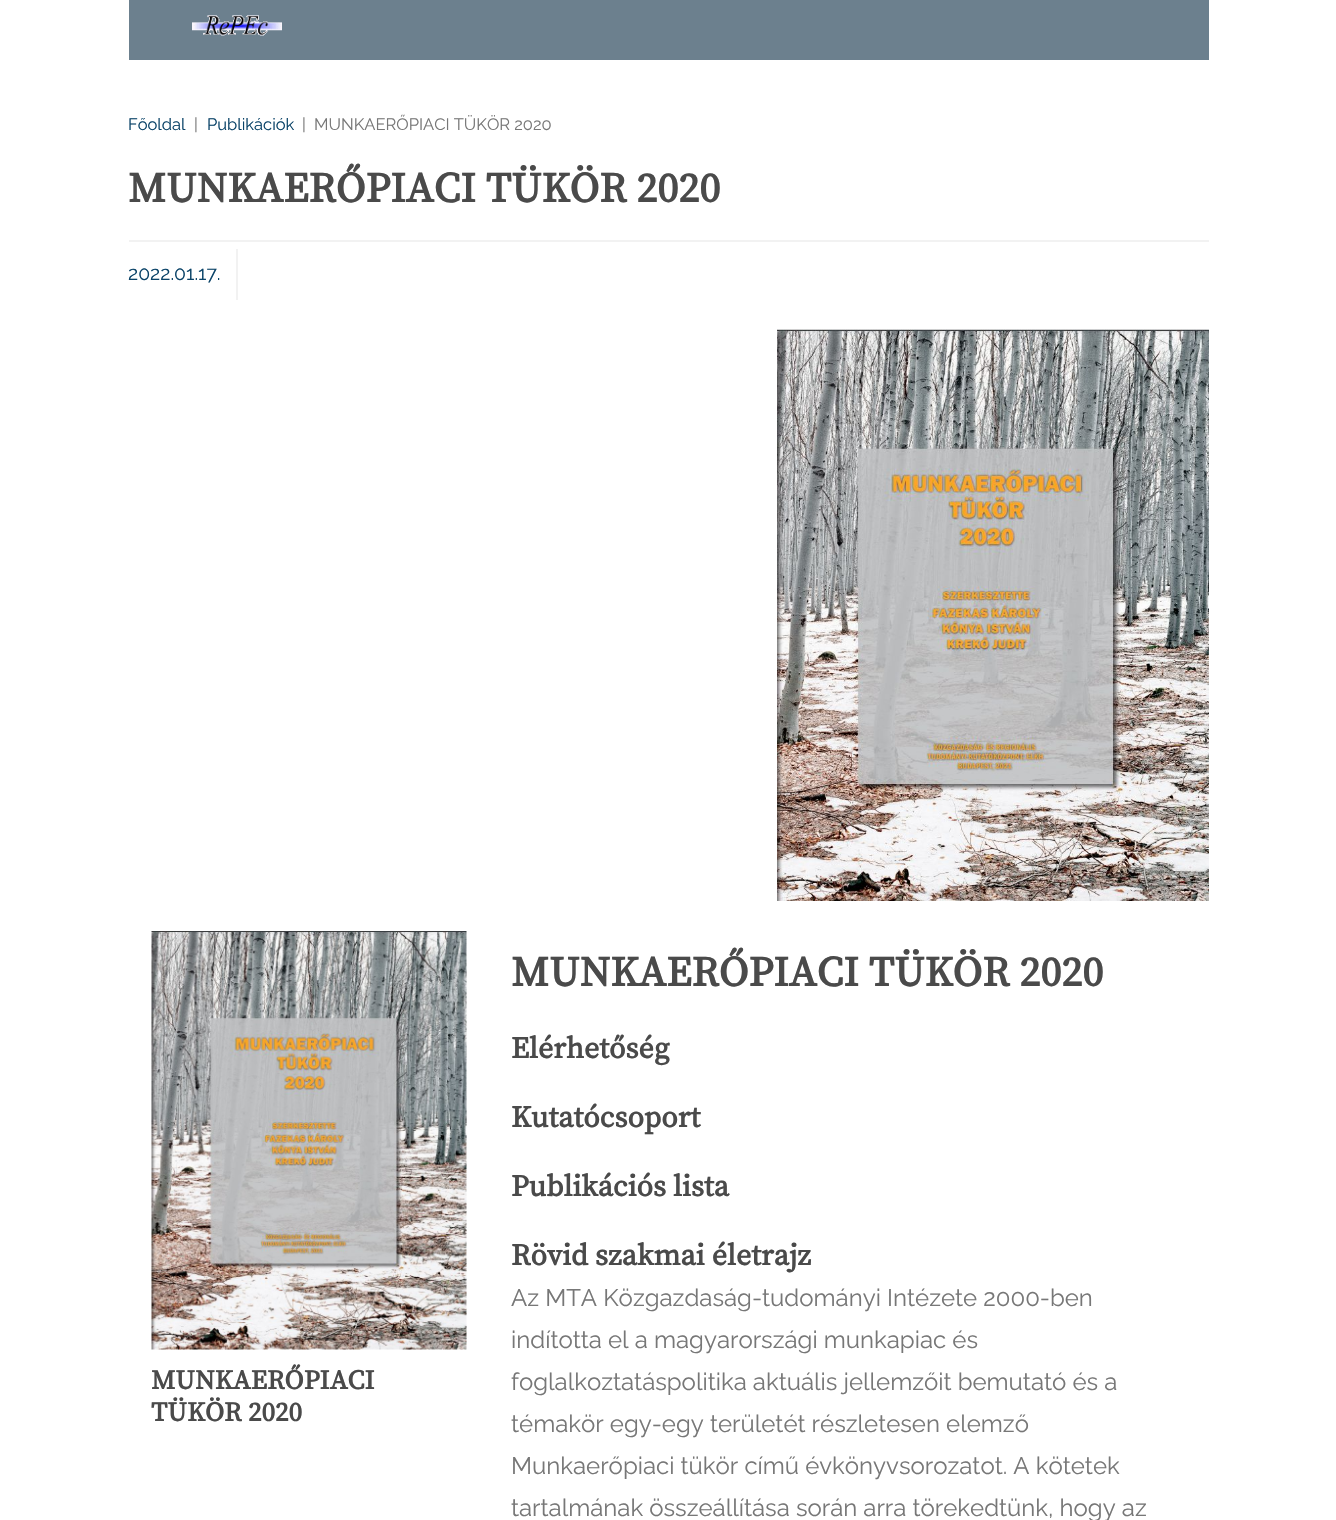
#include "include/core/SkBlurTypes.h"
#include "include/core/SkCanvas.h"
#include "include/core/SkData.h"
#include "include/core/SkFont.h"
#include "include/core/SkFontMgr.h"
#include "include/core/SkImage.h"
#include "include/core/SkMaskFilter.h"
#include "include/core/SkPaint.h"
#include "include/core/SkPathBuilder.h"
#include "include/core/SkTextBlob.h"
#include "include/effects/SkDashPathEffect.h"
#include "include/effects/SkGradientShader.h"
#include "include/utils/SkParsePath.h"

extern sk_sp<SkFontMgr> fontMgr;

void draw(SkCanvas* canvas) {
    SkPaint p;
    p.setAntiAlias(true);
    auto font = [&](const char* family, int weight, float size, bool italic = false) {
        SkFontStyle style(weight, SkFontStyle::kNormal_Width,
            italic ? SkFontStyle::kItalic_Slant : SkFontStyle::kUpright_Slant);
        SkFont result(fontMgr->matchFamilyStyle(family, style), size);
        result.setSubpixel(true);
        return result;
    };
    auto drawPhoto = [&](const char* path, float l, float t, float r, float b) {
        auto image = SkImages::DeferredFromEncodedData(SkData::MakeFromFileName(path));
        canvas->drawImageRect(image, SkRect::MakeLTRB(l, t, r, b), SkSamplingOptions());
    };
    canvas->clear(0xFFFFFFFF);
    p.setColor(0xFF6C808E);
    canvas->drawRect(SkRect::MakeLTRB(129, 0, 1209, 60), p);
    drawPhoto("media/1.png", 192, 15, 282, 36);
    auto font1 = font("Raleway", 400, 16.5f);
    p.setColor(0xFF0A4368);
    canvas->drawString("Főoldal", 128, 130, font1, p);
    p.setColor(0xFF777777);
    canvas->drawString("|", 194, 130, font1, p);
    p.setColor(0xFF0A4368);
    canvas->drawString("Publikációk", 207, 130, font1, p);
    p.setColor(0xFF777777);
    canvas->drawString("|", 302, 130, font1, p);
    canvas->drawString("MUNKAERŐPIACI TÜKÖR 2020", 314, 130, font1, p);
    p.setColor(0xFFF2F2F2);
    canvas->drawRect(SkRect::MakeLTRB(129, 240, 1209, 242), p);
    auto font2 = font("Source Serif Pro", 700, 42);
    p.setColor(0xFF4A4A4A);
    canvas->drawString("MUNKAERŐPIACI TÜKÖR 2020", 128, 202, font2, p);
    p.setColor(0xFFF2F2F2);
    canvas->drawRect(SkRect::MakeLTRB(236, 249, 238, 300), p);
    auto font3 = font("Raleway", 400, 19.5f);
    p.setColor(0xFF0A4368);
    canvas->drawString("2022.01.17.", 128, 280, font3, p);
    drawPhoto("media/2.png", 777, 329, 1209, 901);
    drawPhoto("media/3.png", 151, 931, 467, 1350);
    auto font4 = font("Source Serif Pro", 700, 27);
    p.setColor(0xFF4A4A4A);
    canvas->drawString("MUNKAERŐPIACI", 151, 1389, font4, p);
    canvas->drawString("TÜKÖR 2020", 151, 1421, font4, p);
    canvas->drawString("MUNKAERŐPIACI TÜKÖR 2020", 511, 986, font2, p);
    auto font5 = font("Source Serif Pro", 700, 30);
    {
        const struct { const char* s; float x, y; } items[] = {
            {"Elérhetőség", 511, 1058},
            {"Kutatócsoport", 511, 1127},
            {"Publikációs lista", 511, 1196},
            {"Rövid szakmai életrajz", 511, 1265},
        };
        for (auto [s, x, y] : items) {
            canvas->drawString(s, x, y, font5, p);
        }
    }
    auto font6 = font("Raleway", 400, 24);
    p.setColor(0xFF777777);
    {
        const struct { const char* s; float x, y; } items[] = {
            {"Az MTA Közgazdaság-tudományi Intézete 2000-ben", 511, 1306},
            {"indította el a magyarországi munkapiac és", 511, 1348},
            {"foglalkoztatáspolitika aktuális jellemzőit bemutató és a", 511, 1390},
            {"témakör egy-egy területét részletesen elemző", 511, 1432},
            {"Munkaerőpiaci tükör című évkönyvsorozatot. A kötetek", 511, 1474},
            {"tartalmának összeállítása során arra törekedtünk, hogy az", 511, 1516},
        };
        for (auto [s, x, y] : items) {
            canvas->drawString(s, x, y, font6, p);
        }
    }
}
